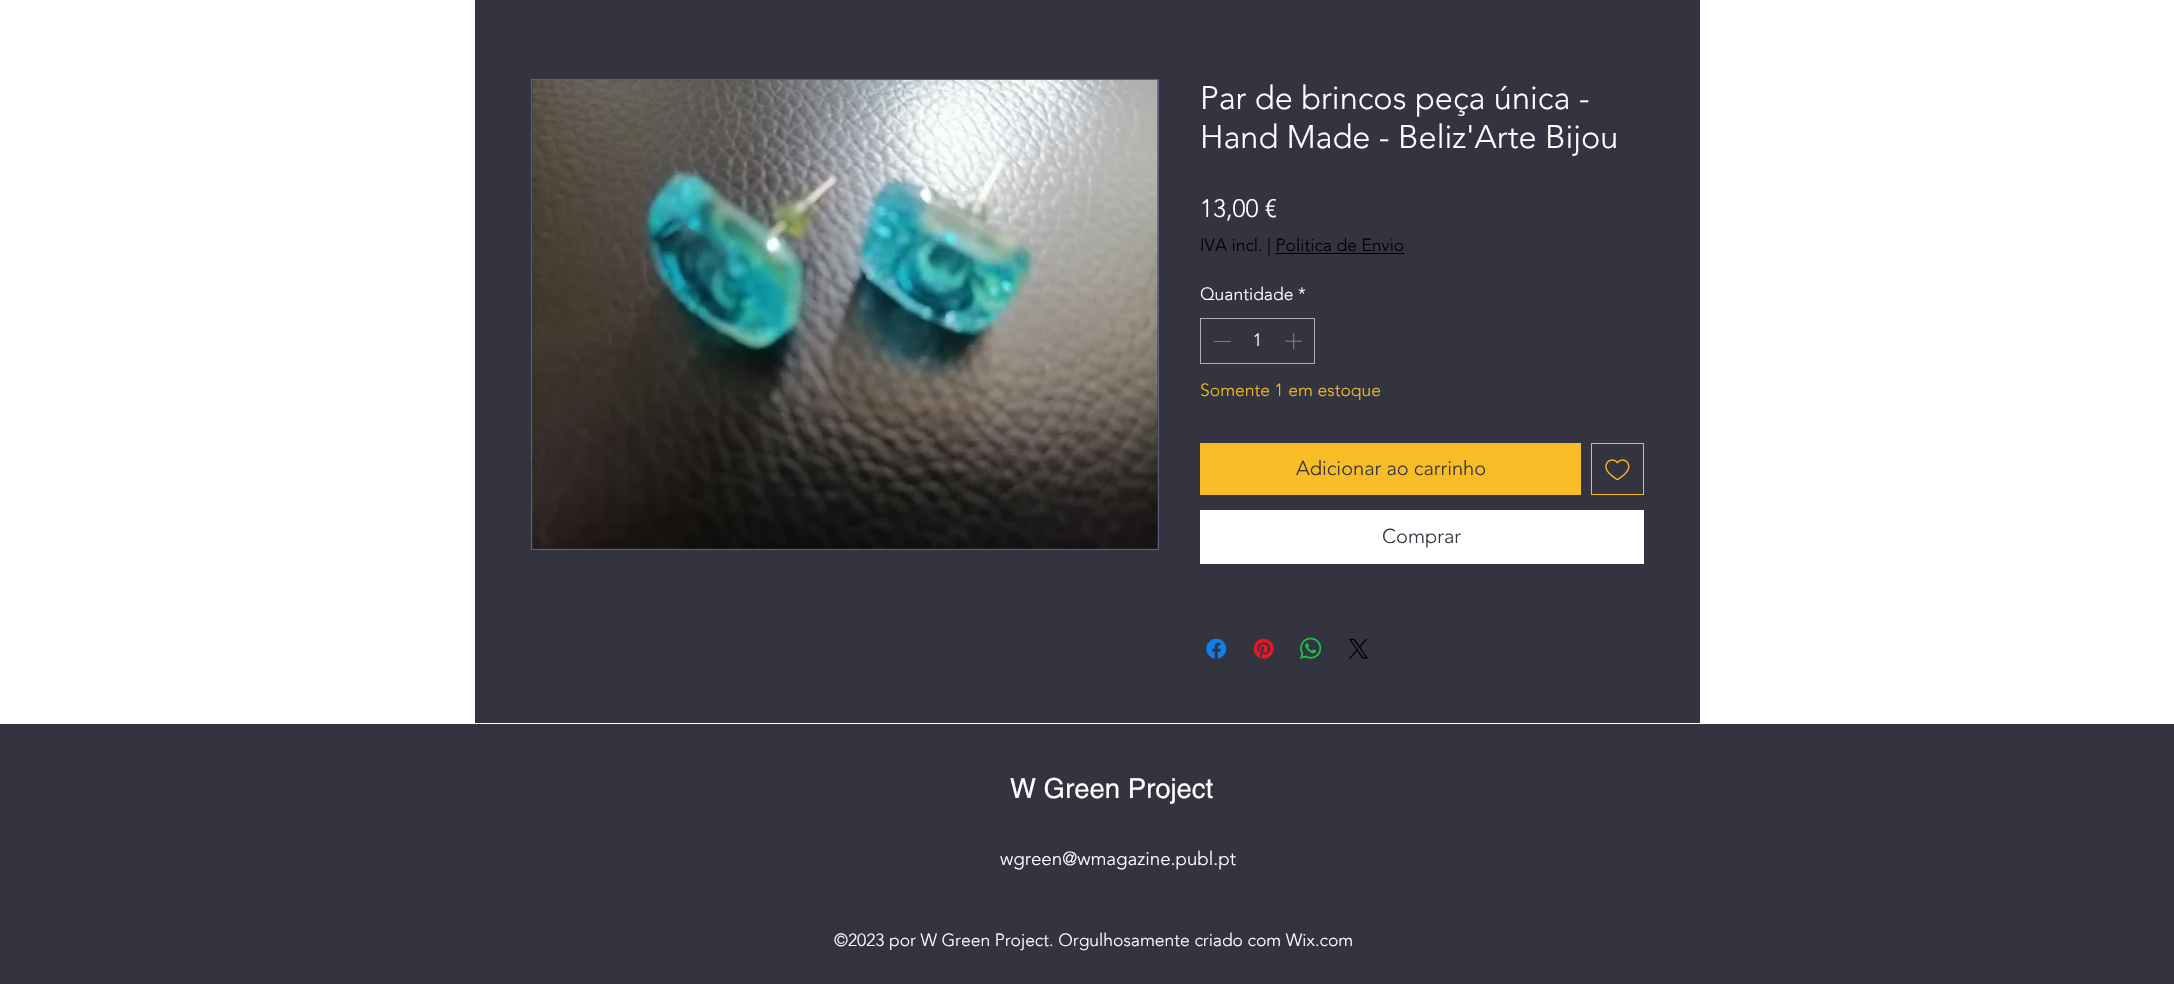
#include "include/core/SkBlurTypes.h"
#include "include/core/SkCanvas.h"
#include "include/core/SkData.h"
#include "include/core/SkFont.h"
#include "include/core/SkFontMgr.h"
#include "include/core/SkImage.h"
#include "include/core/SkMaskFilter.h"
#include "include/core/SkPaint.h"
#include "include/core/SkPathBuilder.h"
#include "include/core/SkTextBlob.h"
#include "include/effects/SkDashPathEffect.h"
#include "include/effects/SkGradientShader.h"
#include "include/utils/SkParsePath.h"

extern sk_sp<SkFontMgr> fontMgr;

void draw(SkCanvas* canvas) {
    SkPaint p;
    p.setAntiAlias(true);
    auto font = [&](const char* family, int weight, float size, bool italic = false) {
        SkFontStyle style(weight, SkFontStyle::kNormal_Width,
            italic ? SkFontStyle::kItalic_Slant : SkFontStyle::kUpright_Slant);
        SkFont result(fontMgr->matchFamilyStyle(family, style), size);
        result.setSubpixel(true);
        return result;
    };
    auto drawPhoto = [&](const char* path, float l, float t, float r, float b) {
        auto image = SkImages::DeferredFromEncodedData(SkData::MakeFromFileName(path));
        canvas->drawImageRect(image, SkRect::MakeLTRB(l, t, r, b), SkSamplingOptions());
    };
    canvas->clear(0xFFFFFFFF);
    p.setColor(0xFF33343F);
    canvas->drawRect(SkRect::MakeLTRB(475, 0, 1700, 723), p);
    p.setStyle(SkPaint::kStroke_Style);
    p.setStrokeWidth(1);
    p.setColor(0xFF5F6176);
    canvas->drawRect(SkRect::MakeLTRB(531.5f, 79.5f, 1158.5f, 549.5f), p);
    drawPhoto("media/1.png", 532, 80, 1158, 549);
    auto font1 = font("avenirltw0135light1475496", 300, 32.5f);
    p.setStyle(SkPaint::kFill_Style);
    p.setColor(0xFFFFFFFF);
    canvas->drawString("Par de brincos peça única -", 1200, 109, font1, p);
    canvas->drawString("Hand Made - Beliz'Arte Bijou", 1200, 148, font1, p);
    auto font2 = font("avenirltw0135light1475496", 300, 25);
    canvas->drawString("13,00 €", 1200, 217, font2, p);
    auto font3 = font("avenirltw0135light1475496", 300, 17.5f);
    p.setColor(0xFF000000);
    canvas->drawString("IVA incl. | Politica de Envio", 1200, 251, font3, p);
    canvas->drawRect(SkRect::MakeLTRB(1275, 253, 1404, 254), p);
    p.setColor(0xFFFFFFFF);
    canvas->drawString("Quantidade", 1200, 300, font3, p);
    canvas->drawString("*", 1298, 300, font3, p);
    p.setStyle(SkPaint::kStroke_Style);
    p.setColor(0xFFADAEB2);
    canvas->drawRect(SkRect::MakeLTRB(1200.5f, 318.5f, 1314.5f, 363.5f), p);
    p.setStyle(SkPaint::kFill_Style);
    p.setColor(0xFF7D7E83);
    canvas->drawRect(SkRect::MakeLTRB(1214, 341, 1231, 342), p);
    p.setColor(0xFFFFFFFF);
    canvas->drawString("1", 1253, 346, font3, p);
    drawPhoto("media/2.png", 1285, 333, 1302, 350);
    p.setColor(0xFFF8BD26);
    canvas->drawString("Somente 1 em estoque", 1200, 396, font3, p);
    canvas->drawRect(SkRect::MakeLTRB(1200, 443, 1581, 495), p);
    auto font4 = font("avenirltw0135light1475496", 300, 20);
    p.setColor(0xFF33343F);
    canvas->drawString("Adicionar ao carrinho", 1296, 475, font4, p);
    p.setStyle(SkPaint::kStroke_Style);
    p.setColor(0xFFF8BD26);
    canvas->drawRect(SkRect::MakeLTRB(1591.5f, 443.5f, 1643.5f, 494.5f), p);
    drawPhoto("media/3.png", 1605, 459, 1630, 481);
    p.setStyle(SkPaint::kFill_Style);
    p.setColor(0xFFFFFFFF);
    canvas->drawRect(SkRect::MakeLTRB(1200, 510, 1644, 564), p);
    p.setColor(0xFF33343F);
    canvas->drawString("Comprar", 1382, 543, font4, p);
    drawPhoto("media/4.png", 1206, 638, 1227, 659);
    drawPhoto("media/5.png", 1253, 638, 1274, 659);
    drawPhoto("media/6.png", 1300, 637, 1322, 659);
    drawPhoto("media/7.png", 1349, 638, 1368, 659);
    canvas->drawRect(SkRect::MakeLTRB(0, 724, 2174, 984), p);
    auto font5 = font("helvetica", 400, 27.5f);
    p.setColor(0xFFFFFFFF);
    canvas->drawString("W Green Project", 1010, 798, font5, p);
    auto font6 = font("avenirltw0135light1475496", 300, 18.75f);
    canvas->drawString("wgreen@wmagazine.publ.pt", 1000, 865, font6, p);
    canvas->drawString("©2023 por W Green Project. Orgulhosamente criado com Wix.com", 834, 946, font3, p);
}
